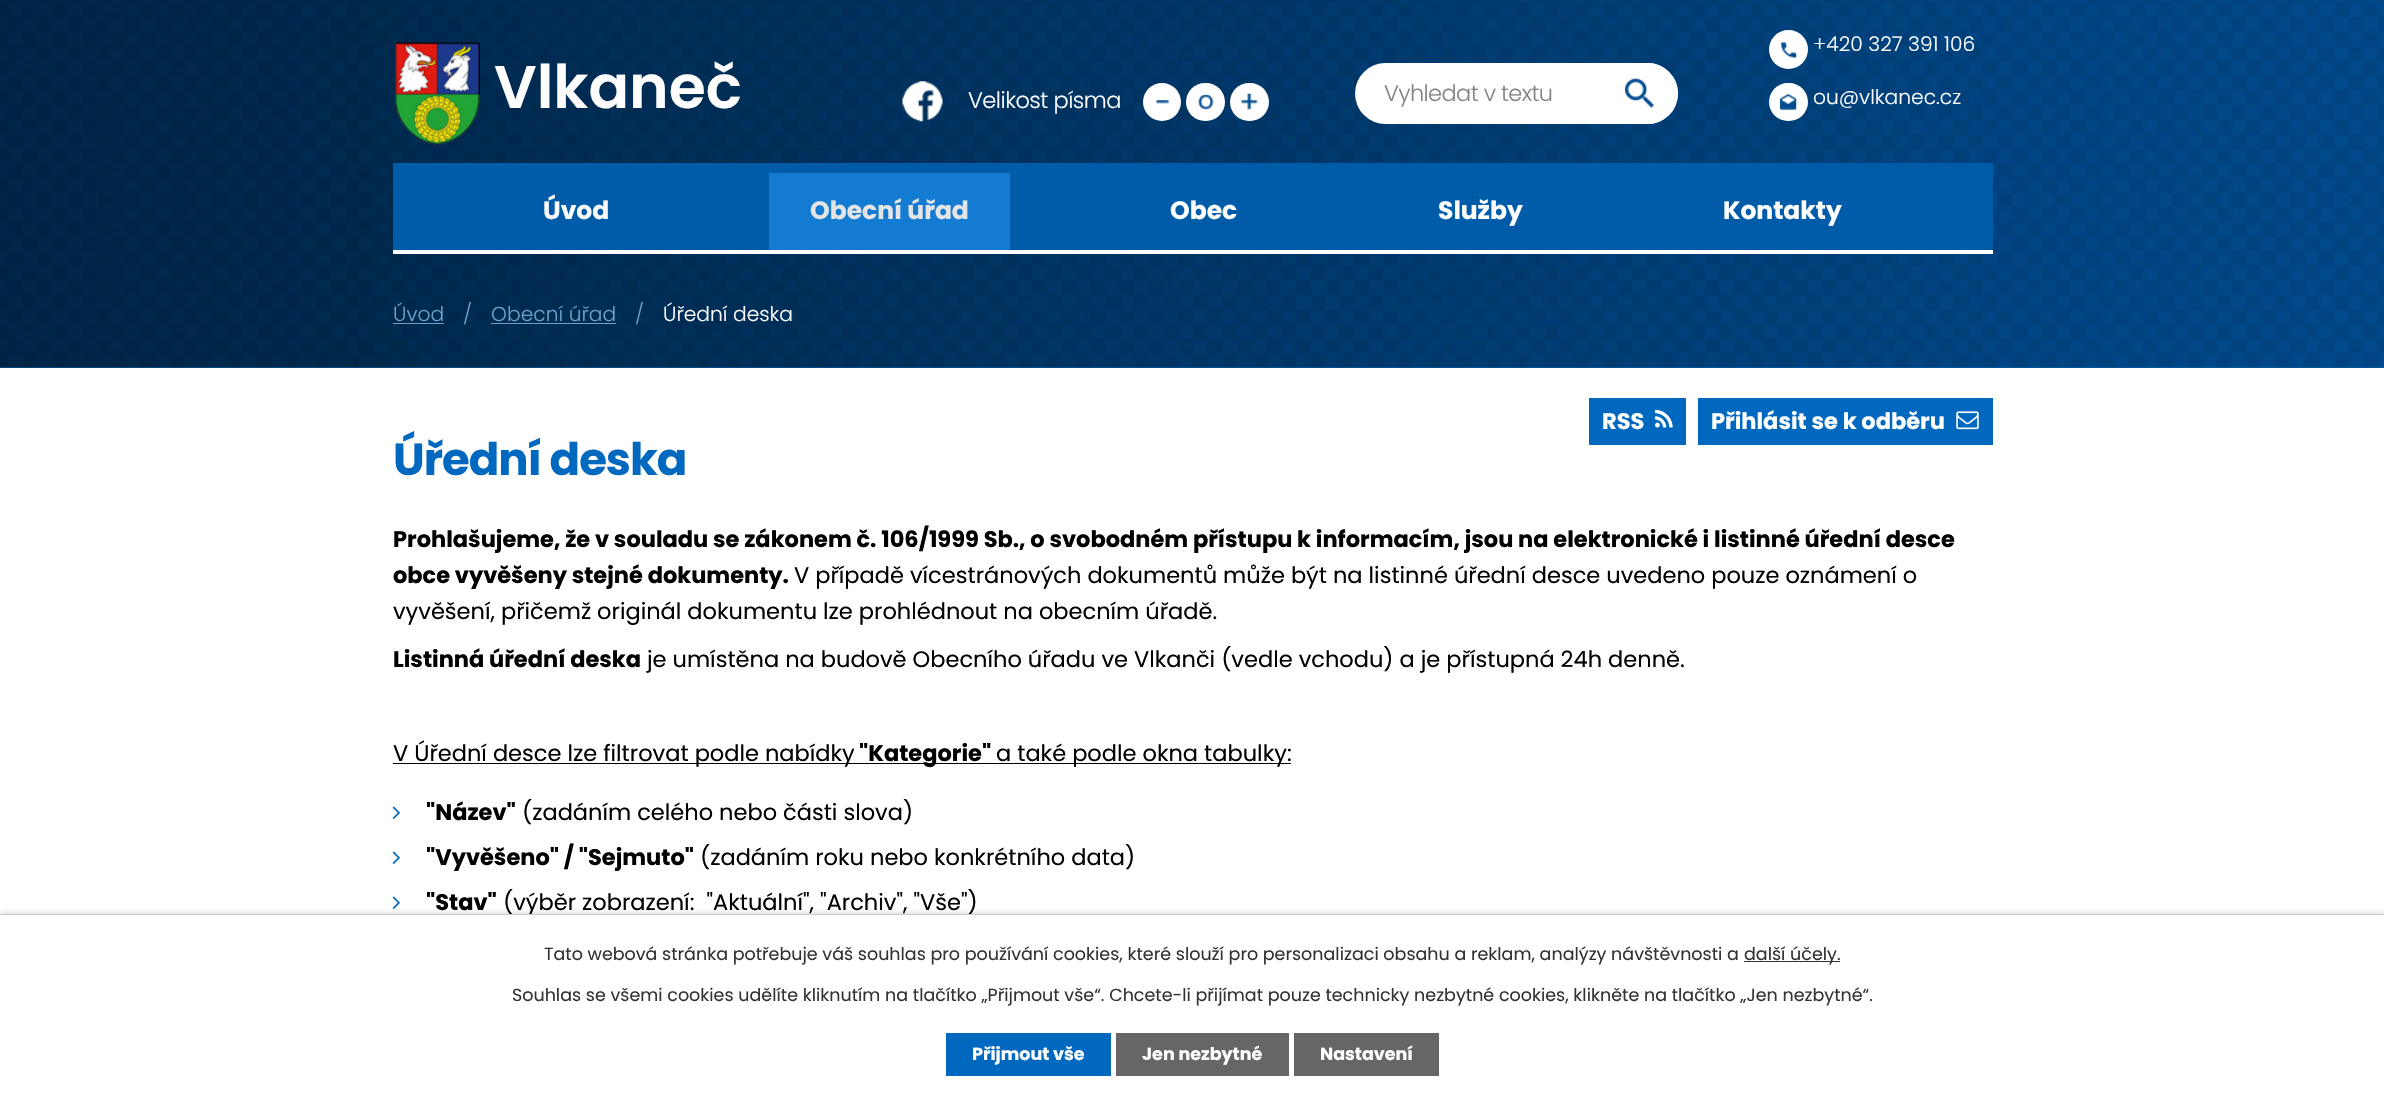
#include "include/core/SkBlurTypes.h"
#include "include/core/SkCanvas.h"
#include "include/core/SkData.h"
#include "include/core/SkFont.h"
#include "include/core/SkFontMgr.h"
#include "include/core/SkImage.h"
#include "include/core/SkMaskFilter.h"
#include "include/core/SkPaint.h"
#include "include/core/SkPathBuilder.h"
#include "include/core/SkTextBlob.h"
#include "include/effects/SkDashPathEffect.h"
#include "include/effects/SkGradientShader.h"
#include "include/utils/SkParsePath.h"

extern sk_sp<SkFontMgr> fontMgr;

void draw(SkCanvas* canvas) {
    SkPaint p;
    p.setAntiAlias(true);
    auto font = [&](const char* family, int weight, float size, bool italic = false) {
        SkFontStyle style(weight, SkFontStyle::kNormal_Width,
            italic ? SkFontStyle::kItalic_Slant : SkFontStyle::kUpright_Slant);
        SkFont result(fontMgr->matchFamilyStyle(family, style), size);
        result.setSubpixel(true);
        return result;
    };
    auto drawTracked = [&](const char* s, float x, float y, const SkFont& font, const SkPaint& ink, float letter, float word) {
        std::vector<SkGlyphID> glyphs(font.countText(s, strlen(s), SkTextEncoding::kUTF8));
        std::vector<float> xs(glyphs.size());
        font.textToGlyphs(s, strlen(s), SkTextEncoding::kUTF8, glyphs);
        font.getXPos(glyphs, xs, x);
        float extra = 0;
        for (size_t i = 0; i < glyphs.size(); i++) {
            xs[i] += extra;
            extra += letter + word * (glyphs[i] == font.unicharToGlyph(' '));
        }
        canvas->drawTextBlob(SkTextBlob::MakeFromPosHGlyphs(glyphs, xs, y, font), 0, 0, ink);
    };
    auto drawPhoto = [&](const char* path, float l, float t, float r, float b) {
        auto image = SkImages::DeferredFromEncodedData(SkData::MakeFromFileName(path));
        canvas->drawImageRect(image, SkRect::MakeLTRB(l, t, r, b), SkSamplingOptions());
    };
    canvas->clear(0xFFFFFFFF);
    p.setColor(0xFF0068BF);
    canvas->drawRect(SkRect::MakeLTRB(0, 367, 2384, 368), p);
    drawPhoto("media/1.png", 0, 0, 2384, 368);
    drawPhoto("media/2.png", 395, 42, 480, 145);
    auto font1 = font("Poppins", 600, 60);
    p.setColor(0xFFFFFFFF);
    canvas->drawString("Vlkaneč", 494, 108, font1, p);
    drawPhoto("media/3.png", 902, 81, 943, 122);
    auto font2 = font("Poppins", 300, 22.5f);
    drawTracked("Velikost písma", 968, 108, font2, p, -0.5f, 0);
    canvas->drawCircle(1162, 102, 19, p);
    drawPhoto("media/4.png", 1156, 100, 1169, 104);
    canvas->drawRoundRect(SkRect::MakeLTRB(1186, 83, 1225, 121), 19, 19, p);
    drawPhoto("media/5.png", 1198, 94, 1214, 110);
    canvas->drawRoundRect(SkRect::MakeLTRB(1230, 83, 1269, 121), 19, 19, p);
    drawPhoto("media/6.png", 1241, 93, 1258, 110);
    canvas->drawRoundRect(SkRect::MakeLTRB(1355, 63, 1678, 124), 30.5f, 30.5f, p);
    p.setColor(0xFF838383);
    drawTracked("Vyhledat v textu", 1384, 101, font2, p, -0.6f, 0);
    p.setColor(0xFFFFFFFF);
    canvas->drawRoundRect(SkRect::MakeLTRB(1600, 63, 1678, 124), 30.5f, 30.5f, p);
    drawPhoto("media/7.png", 1625, 78, 1654, 108);
    canvas->drawCircle(1788.5f, 49.5f, 19.5f, p);
    drawPhoto("media/8.png", 1781, 42, 1797, 58);
    auto font3 = font("Poppins", 300, 20.25f);
    canvas->drawString("+420 327 391 106", 1813, 51, font3, p);
    canvas->drawRoundRect(SkRect::MakeLTRB(1769, 83, 1808, 121), 19, 19, p);
    drawPhoto("media/9.png", 1780, 93, 1797, 110);
    canvas->drawString("ou@vlkanec.cz", 1813, 104, font3, p);
    p.setColor(0xFF005CA9);
    canvas->drawRect(SkRect::MakeLTRB(393, 163, 1993, 250), p);
    p.setColor(0xFFFFFFFF);
    canvas->drawRect(SkRect::MakeLTRB(393, 250, 1993, 254), p);
    auto font4 = font("Poppins", 700, 25);
    canvas->drawString("Úvod", 543, 219, font4, p);
    p.setColor(0xFF147BD2);
    canvas->drawRect(SkRect::MakeLTRB(769, 173, 1010, 250), p);
    p.setColor(0xFFE5E5E5);
    canvas->drawString("Obecní úřad", 810, 219, font4, p);
    p.setColor(0xFFFFFFFF);
    {
        const struct { const char* s; float x, y; } items[] = {
            {"Obec", 1170, 219},
            {"Služby", 1438, 219},
            {"Kontakty", 1723, 219},
        };
        for (auto [s, x, y] : items) {
            canvas->drawString(s, x, y, font4, p);
        }
    }
    p.setColor(0xFF6EA0C9);
    canvas->drawString("Úvod", 393, 321, font3, p);
    canvas->drawRect(SkRect::MakeLTRB(393, 323, 444, 324), p);
    canvas->drawString("/", 463, 321, font3, p);
    canvas->drawString("Obecní úřad", 491, 321, font3, p);
    canvas->drawRect(SkRect::MakeLTRB(491, 323, 616, 324), p);
    canvas->drawString("/", 635, 321, font3, p);
    p.setColor(0xFFFFFFFF);
    canvas->drawString("Úřední deska", 663, 321, font3, p);
    p.setColor(0xFF0068BF);
    canvas->drawRect(SkRect::MakeLTRB(1589, 398, 1686, 445), p);
    auto font5 = font("Poppins", 700, 22.5f);
    p.setColor(0xFFFFFFFF);
    canvas->drawString("RSS", 1602, 429, font5, p);
    drawPhoto("media/10.png", 1655, 409, 1673, 428);
    p.setColor(0xFF0068BF);
    canvas->drawRect(SkRect::MakeLTRB(1698, 398, 1993, 445), p);
    p.setColor(0xFFFFFFFF);
    canvas->drawString("Přihlásit se k odběru", 1711, 429, font5, p);
    drawPhoto("media/11.png", 1956, 411, 1979, 430);
    auto font6 = font("Poppins", 700, 45);
    p.setColor(0xFF0068BF);
    drawTracked("Úřední deska", 393, 475, font6, p, -1, 0);
    p.setColor(0xFF000000);
    canvas->drawString("Prohlašujeme, že v souladu se zákonem č. 106/1999 Sb., o svobodném přístupu k informacím, jsou na elektronické i listinné úřední desce", 393, 547, font5, p);
    canvas->drawString("obce vyvěšeny stejné dokumenty.", 393, 583, font5, p);
    auto font7 = font("Poppins", 400, 22.5f);
    canvas->drawString("V případě vícestránových dokumentů může být na listinné úřední desce uvedeno pouze oznámení o", 794, 583, font7, p);
    canvas->drawString("vyvěšení, přičemž originál dokumentu lze prohlédnout na obecním úřadě.", 393, 619, font7, p);
    canvas->drawString("Listinná úřední deska", 393, 667, font5, p);
    canvas->drawString("je umístěna na budově Obecního úřadu ve Vlkanči (vedle vchodu) a je přístupná 24h denně.", 647, 667, font7, p);
    canvas->drawRect(SkRect::MakeLTRB(393, 763, 1291, 764), p);
    canvas->drawString("V Úřední desce lze filtrovat podle nabídky", 393, 761, font7, p);
    canvas->drawString("\"Kategorie\"", 859, 761, font5, p);
    canvas->drawString("a také podle okna tabulky:", 996, 761, font7, p);
    drawPhoto("media/12.png", 392, 806, 400, 819);
    canvas->drawString("\"Název\"", 426, 820, font5, p);
    canvas->drawString("(zadáním celého nebo části slova)", 522, 820, font7, p);
    drawPhoto("media/12.png", 392, 851, 400, 864);
    canvas->drawString("\"Vyvěšeno\" / \"Sejmuto\"", 426, 865, font5, p);
    canvas->drawString("(zadáním roku nebo konkrétního data)", 700, 865, font7, p);
    drawPhoto("media/12.png", 392, 896, 400, 909);
    canvas->drawString("\"Stav\"", 426, 910, font5, p);
    canvas->drawString("(výběr zobrazení:  \"Aktuální\", \"Archiv\", \"Vše\")", 503, 910, font7, p);
    p.setColor(0x33000000);
    p.setMaskFilter(SkMaskFilter::MakeBlur(kNormal_SkBlurStyle, 3));
    canvas->drawRect(SkRect::MakeLTRB(0, 914, 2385, 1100), p);
    p.setMaskFilter(nullptr);
    p.setColor(0xFFFFFFFF);
    canvas->drawRect(SkRect::MakeLTRB(0, 915, 2384, 1099), p);
    p.setColor(0xFFCCCCCC);
    canvas->drawRect(SkRect::MakeLTRB(0, 914, 2384, 915), p);
    auto font8 = font("Poppins", 400, 17.5f);
    p.setColor(0xFF333333);
    canvas->drawString("Tato webová stránka potřebuje váš souhlas pro používání cookies, které slouží pro personalizaci obsahu a reklam, analýzy návštěvnosti a", 544, 960, font8, p);
    canvas->drawRect(SkRect::MakeLTRB(1744, 961, 1840, 962), p);
    canvas->drawString("další účely.", 1744, 960, font8, p);
    canvas->drawString("Souhlas se všemi cookies udělíte kliknutím na tlačítko „Přijmout vše“. Chcete-li přijímat pouze technicky nezbytné cookies, klikněte na tlačítko „Jen nezbytné“.", 512, 1001, font8, p);
    p.setColor(0xFF0068BF);
    canvas->drawRect(SkRect::MakeLTRB(946, 1033, 1111, 1076), p);
    auto font9 = font("Poppins", 700, 17.5f);
    p.setColor(0xFFFFFFFF);
    canvas->drawString("Přijmout vše", 972, 1060, font9, p);
    p.setColor(0xFF666666);
    canvas->drawRect(SkRect::MakeLTRB(1116, 1033, 1289, 1076), p);
    p.setColor(0xFFFFFFFF);
    canvas->drawString("Jen nezbytné", 1142, 1060, font9, p);
    p.setColor(0xFF666666);
    canvas->drawRect(SkRect::MakeLTRB(1294, 1033, 1439, 1076), p);
    p.setColor(0xFFFFFFFF);
    canvas->drawString("Nastavení", 1320, 1060, font9, p);
}
